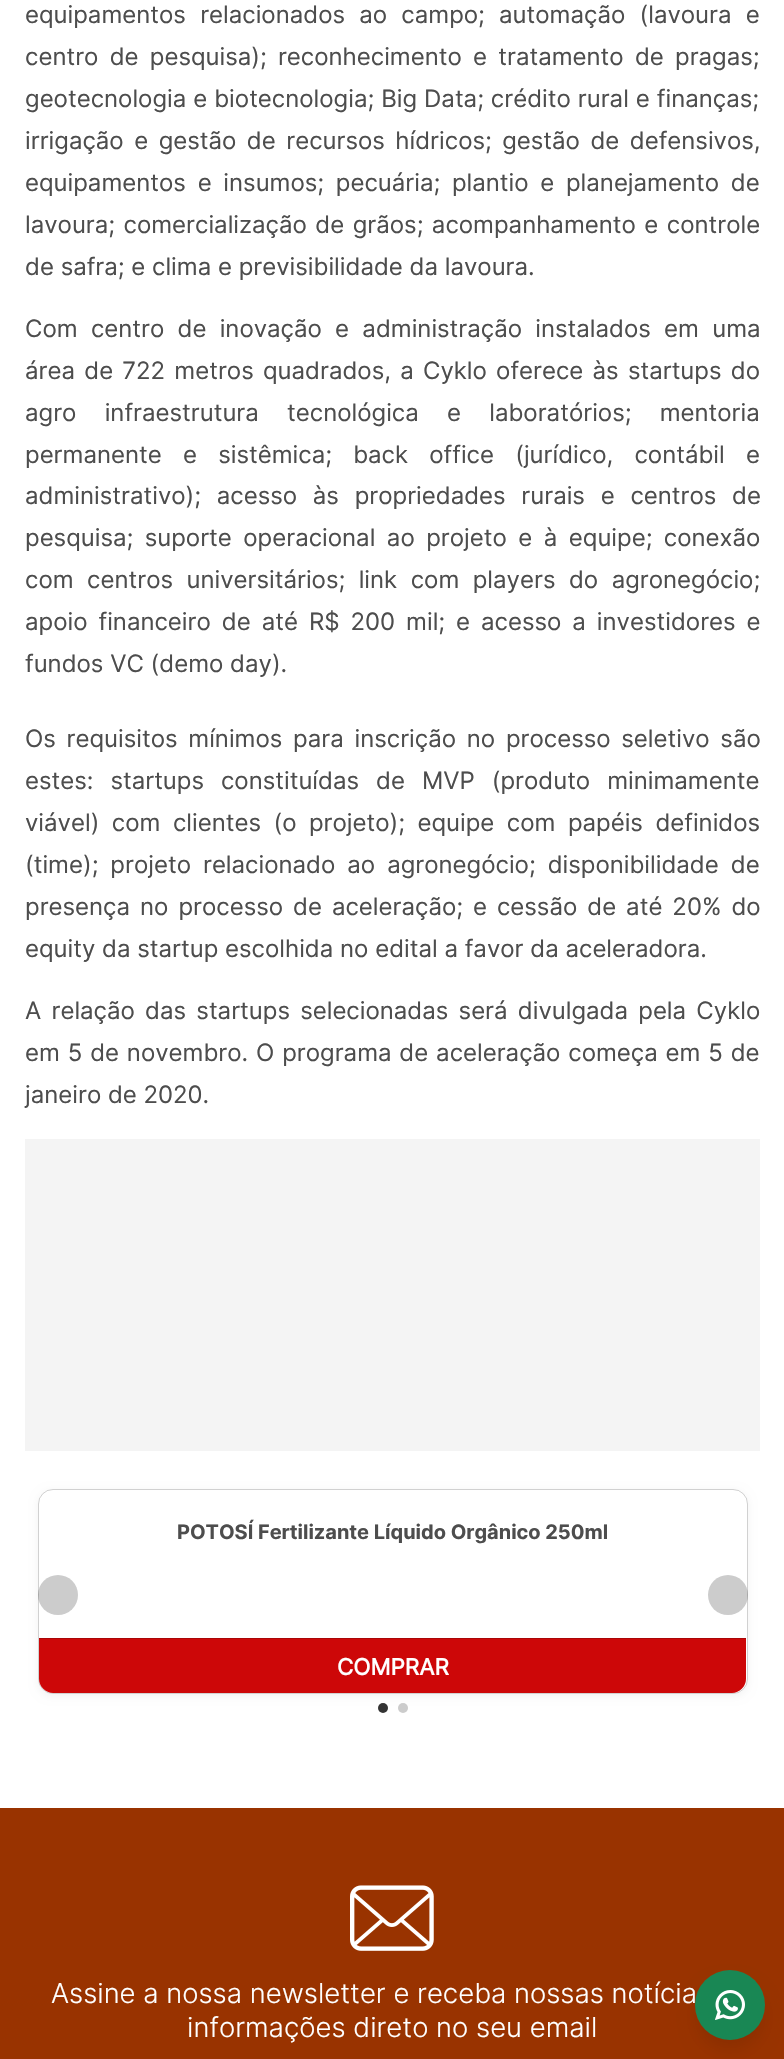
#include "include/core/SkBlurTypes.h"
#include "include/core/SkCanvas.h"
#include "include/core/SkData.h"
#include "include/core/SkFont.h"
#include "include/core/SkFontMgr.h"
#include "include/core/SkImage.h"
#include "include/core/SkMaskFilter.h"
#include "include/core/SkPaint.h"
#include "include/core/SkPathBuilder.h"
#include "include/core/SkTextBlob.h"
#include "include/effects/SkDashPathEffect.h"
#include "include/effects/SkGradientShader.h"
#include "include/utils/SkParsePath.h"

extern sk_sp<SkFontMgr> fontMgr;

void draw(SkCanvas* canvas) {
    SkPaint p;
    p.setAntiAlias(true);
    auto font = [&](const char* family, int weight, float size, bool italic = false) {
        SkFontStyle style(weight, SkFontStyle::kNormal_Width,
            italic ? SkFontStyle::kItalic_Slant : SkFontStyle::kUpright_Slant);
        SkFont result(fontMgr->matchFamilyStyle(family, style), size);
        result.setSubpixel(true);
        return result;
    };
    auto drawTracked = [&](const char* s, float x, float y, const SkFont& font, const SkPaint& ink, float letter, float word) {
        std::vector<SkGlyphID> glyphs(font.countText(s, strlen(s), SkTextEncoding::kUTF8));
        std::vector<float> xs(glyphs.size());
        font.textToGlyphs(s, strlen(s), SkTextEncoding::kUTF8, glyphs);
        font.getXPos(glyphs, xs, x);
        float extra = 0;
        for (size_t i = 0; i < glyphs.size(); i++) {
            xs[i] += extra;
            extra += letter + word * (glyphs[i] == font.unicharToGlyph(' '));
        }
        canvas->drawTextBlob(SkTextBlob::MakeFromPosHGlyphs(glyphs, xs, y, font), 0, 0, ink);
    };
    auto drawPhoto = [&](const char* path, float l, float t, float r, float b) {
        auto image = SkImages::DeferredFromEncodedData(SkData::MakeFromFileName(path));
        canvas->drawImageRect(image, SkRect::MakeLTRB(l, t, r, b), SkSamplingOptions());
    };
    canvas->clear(0xFFFFFFFF);
    auto font1 = font("Inter", 400, 24);
    p.setColor(0xFF4D4D4D);
    drawTracked("equipamentos relacionados ao campo; automação (lavoura e", 25, 23, font1, p, 0, 7.5f);
    drawTracked("centro de pesquisa); reconhecimento e tratamento de pragas;", 25, 65, font1, p, 0, 4.5f);
    drawTracked("geotecnologia e biotecnologia; Big Data; crédito rural e finanças;", 25, 107, font1, p, 0, 0.25f);
    drawTracked("irrigação e gestão de recursos hídricos; gestão de defensivos,", 25, 149, font1, p, 0, 3.75f);
    drawTracked("equipamentos e insumos; pecuária; plantio e planejamento de", 25, 191, font1, p, 0, 5);
    drawTracked("lavoura; comercialização de grãos; acompanhamento e controle", 25, 233, font1, p, 0, 1.75f);
    canvas->drawString("de safra; e clima e previsibilidade da lavoura.", 25, 275, font1, p);
    drawTracked("Com centro de inovação e administração instalados em uma", 25, 337, font1, p, 0, 6.5f);
    drawTracked("área de 722 metros quadrados, a Cyklo oferece às startups do", 25, 379, font1, p, 0, 2.5f);
    drawTracked("agro infraestrutura tecnológica e laboratórios; mentoria", 25, 421, font1, p, 0, 21.5f);
    drawTracked("permanente e sistêmica; back office (jurídico, contábil e", 25, 463, font1, p, 0, 14.5f);
    drawTracked("administrativo); acesso às propriedades rurais e centros de", 25, 504, font1, p, 0, 9);
    drawTracked("pesquisa; suporte operacional ao projeto e à equipe; conexão", 25, 546, font1, p, 0, 4.75f);
    drawTracked("com centros universitários; link com players do agronegócio;", 25, 588, font1, p, 0, 6.75f);
    drawTracked("apoio financeiro de até R$ 200 mil; e acesso a investidores e", 25, 630, font1, p, 0, 4.25f);
    canvas->drawString("fundos VC (demo day).", 25, 672, font1, p);
    drawTracked("Os requisitos mínimos para inscrição no processo seletivo são", 25, 747, font1, p, 0, 4);
    drawTracked("estes: startups constituídas de MVP (produto minimamente", 25, 789, font1, p, 0, 10.25f);
    drawTracked("viável) com clientes (o projeto); equipe com papéis definidos", 25, 831, font1, p, 0, 5.75f);
    drawTracked("(time); projeto relacionado ao agronegócio; disponibilidade de", 25, 873, font1, p, 0, 5.25f);
    drawTracked("presença no processo de aceleração; e cessão de até 20% do", 25, 915, font1, p, 0, 3.25f);
    canvas->drawString("equity da startup escolhida no edital a favor da aceleradora.", 25, 957, font1, p);
    drawTracked("A relação das startups selecionadas será divulgada pela Cyklo", 25, 1019, font1, p, 0, 3.5f);
    drawTracked("em 5 de novembro. O programa de aceleração começa em 5 de", 25, 1061, font1, p, 0, 1.1f);
    canvas->drawString("janeiro de 2020.", 25, 1103, font1, p);
    p.setColor(0xFFF4F4F4);
    canvas->drawRect(SkRect::MakeLTRB(25, 1139, 760, 1451), p);
    p.setColor(0x0D000000);
    p.setMaskFilter(SkMaskFilter::MakeBlur(kNormal_SkBlurStyle, 4));
    canvas->drawRoundRect(SkRect::MakeLTRB(38, 1491, 748, 1696), 15, 15, p);
    p.setMaskFilter(nullptr);
    p.setColor(0xFFFFFFFF);
    canvas->drawRoundRect(SkRect::MakeLTRB(38, 1489, 748, 1694), 15, 15, p);
    p.setStyle(SkPaint::kStroke_Style);
    p.setStrokeWidth(1);
    p.setColor(0x2E000000);
    canvas->drawRoundRect(SkRect::MakeLTRB(38.5f, 1489.5f, 747.5f, 1693.5f), 14.5f, 14.5f, p);
    p.setStyle(SkPaint::kFill_Style);
    p.setColor(0x33000000);
    canvas->drawCircle(58, 1595, 20, p);
    auto font2 = font("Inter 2", 700, 20);
    p.setColor(0xFF4D4D4D);
    canvas->drawString("POTOSÍ Fertilizante Líquido Orgânico 250ml", 177, 1539, font2, p);
    p.setColor(0xFFCD0708);
    canvas->drawPath(SkPathBuilder().moveTo(39, 1638).lineTo(746, 1638).lineTo(746, 1679).cubicTo(746, 1686.5f, 739.5f, 1693, 732, 1693).lineTo(53, 1693).cubicTo(45.5f, 1693, 39, 1686.5f, 39, 1679).close().detach(), p);
    p.setColor(0xFFA90607);
    canvas->drawRect(SkRect::MakeLTRB(39, 1638, 746, 1639), p);
    auto font3 = font("Inter", 700, 22.5f);
    p.setColor(0xFFFFFFFF);
    canvas->drawString("COMPRAR", 337, 1675, font3, p);
    p.setColor(0x33000000);
    canvas->drawCircle(728, 1595, 20, p);
    p.setColor(0xFF333333);
    canvas->drawCircle(383, 1708, 5, p);
    p.setColor(0xFFCCCCCC);
    canvas->drawCircle(403, 1708, 5, p);
    p.setColor(0xFF993300);
    canvas->drawRect(SkRect::MakeLTRB(0, 1808, 784, 2059), p);
    drawPhoto("media/1.png", 350, 1885, 434, 1951);
    auto font4 = font("Inter", 300, 27.5f);
    p.setColor(0xFFFFFFFF);
    canvas->drawString("Assine a nossa newsletter e receba nossas notícia", 51, 2003, font4, p);
    canvas->drawString("informações direto no seu email", 187, 2037, font4, p);
    p.setColor(0x1A000000);
    p.setMaskFilter(SkMaskFilter::MakeBlur(kNormal_SkBlurStyle, 9.5f));
    canvas->drawRoundRect(SkRect::MakeLTRB(699, 1986, 761, 2049), 31, 31, p);
    p.setMaskFilter(nullptr);
    p.setColor(0xFF198754);
    canvas->drawCircle(730, 2005, 35, p);
    drawPhoto("media/2.png", 715, 1990, 745, 2020);
}
